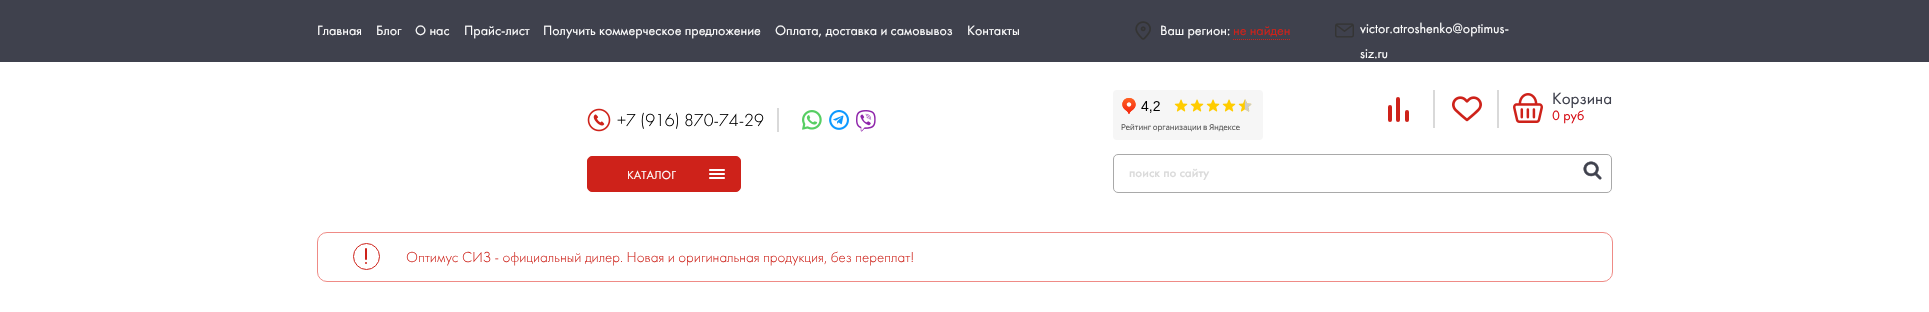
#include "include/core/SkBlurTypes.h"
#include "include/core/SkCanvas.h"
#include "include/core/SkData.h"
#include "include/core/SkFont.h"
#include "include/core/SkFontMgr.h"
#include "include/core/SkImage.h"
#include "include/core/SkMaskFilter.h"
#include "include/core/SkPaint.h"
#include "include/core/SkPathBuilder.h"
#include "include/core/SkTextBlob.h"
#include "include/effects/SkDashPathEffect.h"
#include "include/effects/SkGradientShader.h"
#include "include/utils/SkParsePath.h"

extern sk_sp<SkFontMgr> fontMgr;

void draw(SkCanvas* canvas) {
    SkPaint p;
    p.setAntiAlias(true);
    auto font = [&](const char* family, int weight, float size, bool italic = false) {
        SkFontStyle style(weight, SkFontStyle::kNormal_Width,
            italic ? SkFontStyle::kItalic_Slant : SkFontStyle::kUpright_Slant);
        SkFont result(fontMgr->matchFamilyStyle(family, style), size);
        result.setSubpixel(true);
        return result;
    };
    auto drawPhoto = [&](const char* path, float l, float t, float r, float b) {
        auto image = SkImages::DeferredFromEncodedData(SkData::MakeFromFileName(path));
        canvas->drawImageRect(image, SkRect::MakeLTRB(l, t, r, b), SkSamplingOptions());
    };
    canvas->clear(0xFFFFFFFF);
    p.setColor(0xFF3F414D);
    canvas->drawRect(SkRect::MakeLTRB(0, 0, 1929, 62), p);
    auto font1 = font("Futura PT", 400, 14);
    p.setColor(0xFFFFFFFF);
    {
        const struct { const char* s; float x, y; } items[] = {
            {"Главная", 317, 35},
            {"Блог", 376, 35},
            {"О нас", 415, 35},
            {"Прайс-лист", 464, 35},
            {"Получить коммерческое предложение", 543, 35},
            {"Оплата, доставка и самовывоз", 775, 35},
            {"Контакты", 967, 35},
        };
        for (auto [s, x, y] : items) {
            canvas->drawString(s, x, y, font1, p);
        }
    }
    drawPhoto("media/1.png", 1135, 21, 1151, 40);
    canvas->drawString("Ваш регион:", 1160, 35, font1, p);
    p.setColor(0xFFCE221A);
    canvas->drawString("не найден", 1233, 35, font1, p);
    p.setStyle(SkPaint::kStroke_Style);
    p.setStrokeWidth(1);
    p.setPathEffect(SkDashPathEffect::Make({{1, 1}}, 0));
    canvas->drawPath(SkPathBuilder().moveTo(1233, 39.5f).lineTo(1290, 39.5f).detach(), p);
    p.setPathEffect(nullptr);
    drawPhoto("media/2.png", 1335, 23, 1354, 38);
    p.setStyle(SkPaint::kFill_Style);
    p.setColor(0xFFFFFFFF);
    canvas->drawString("victor.atroshenko@optimus-", 1360, 33, font1, p);
    canvas->drawString("siz.ru", 1360, 58, font1, p);
    drawPhoto("media/3.png", 587, 108, 611, 132);
    auto font2 = font("Futura PT", 300, 18);
    p.setColor(0xFF000000);
    canvas->drawString("+7 (916) 870-74-29", 617, 126, font2, p);
    p.setColor(0xFFD9D9D9);
    canvas->drawRect(SkRect::MakeLTRB(777, 108, 779, 132), p);
    drawPhoto("media/4.png", 802, 110, 822, 130);
    drawPhoto("media/5.png", 829, 110, 849, 130);
    drawPhoto("media/6.png", 856, 110, 876, 132);
    p.setColor(0xFFCE221A);
    canvas->drawRoundRect(SkRect::MakeLTRB(587.5f, 156.5f, 740.5f, 191.5f), 4.5f, 4.5f, p);
    p.setStyle(SkPaint::kStroke_Style);
    canvas->drawRoundRect(SkRect::MakeLTRB(587.5f, 156.5f, 740.5f, 191.5f), 4.5f, 4.5f, p);
    auto font3 = font("Futura PT", 400, 12);
    p.setStyle(SkPaint::kFill_Style);
    p.setColor(0xFFFFFFFF);
    canvas->drawString("КАТАЛОГ", 627, 179, font3, p);
    drawPhoto("media/7.png", 709, 169, 725, 179);
    drawPhoto("media/8.png", 1113, 90, 1263, 140);
    p.setColor(0xFFCE221A);
    canvas->drawRoundRect(SkRect::MakeLTRB(1388, 105, 1392, 122), 2, 2, p);
    canvas->drawRoundRect(SkRect::MakeLTRB(1396, 97, 1400, 122), 2, 2, p);
    canvas->drawRoundRect(SkRect::MakeLTRB(1405, 110, 1409, 122), 2, 2, p);
    p.setColor(0xFFD9D9D9);
    canvas->drawRect(SkRect::MakeLTRB(1433, 90, 1435, 128), p);
    drawPhoto("media/9.png", 1452, 96, 1482, 122);
    canvas->drawRect(SkRect::MakeLTRB(1497, 90, 1499, 128), p);
    drawPhoto("media/10.png", 1513, 93, 1543, 123);
    auto font4 = font("Futura PT", 400, 17);
    p.setColor(0xFF3F414D);
    canvas->drawString("Корзина", 1552, 104, font4, p);
    p.setColor(0xFFD71018);
    canvas->drawString("0 руб", 1552, 120, font1, p);
    p.setStyle(SkPaint::kStroke_Style);
    p.setColor(0xFFA9A9A9);
    canvas->drawRoundRect(SkRect::MakeLTRB(1113.5f, 154.5f, 1611.5f, 192.5f), 4.5f, 4.5f, p);
    auto font5 = font("Futura PT", 500, 13);
    p.setStyle(SkPaint::kFill_Style);
    p.setColor(0xFFDADADA);
    canvas->drawString("поиск по сайту", 1129, 177, font5, p);
    drawPhoto("media/11.png", 1583, 161, 1602, 180);
    p.setStyle(SkPaint::kStroke_Style);
    p.setColor(0xFFEF8B86);
    canvas->drawRoundRect(SkRect::MakeLTRB(317.5f, 232.5f, 1612.5f, 281.5f), 9.5f, 9.5f, p);
    p.setColor(0xFFCE221A);
    canvas->drawCircle(366.5f, 256.5f, 13, p);
    p.setStyle(SkPaint::kFill_Style);
    canvas->drawRoundRect(SkRect::MakeLTRB(365, 248, 367, 260), 1, 1, p);
    canvas->drawCircle(366, 263, 1, p);
    auto font6 = font("Futura PT", 300, 15);
    canvas->drawString("Оптимус СИЗ - официальный дилер. Новая и оригинальная продукция, без переплат!", 406, 262, font6, p);
}
